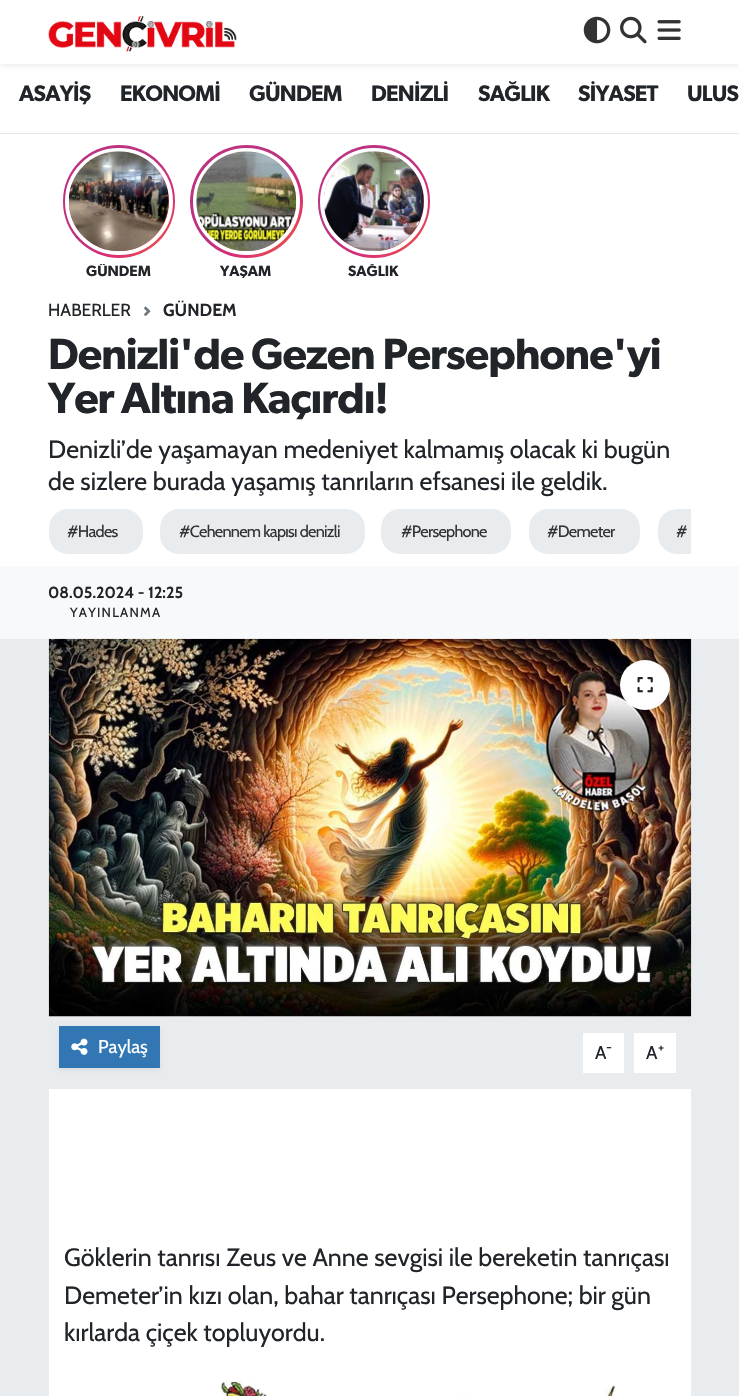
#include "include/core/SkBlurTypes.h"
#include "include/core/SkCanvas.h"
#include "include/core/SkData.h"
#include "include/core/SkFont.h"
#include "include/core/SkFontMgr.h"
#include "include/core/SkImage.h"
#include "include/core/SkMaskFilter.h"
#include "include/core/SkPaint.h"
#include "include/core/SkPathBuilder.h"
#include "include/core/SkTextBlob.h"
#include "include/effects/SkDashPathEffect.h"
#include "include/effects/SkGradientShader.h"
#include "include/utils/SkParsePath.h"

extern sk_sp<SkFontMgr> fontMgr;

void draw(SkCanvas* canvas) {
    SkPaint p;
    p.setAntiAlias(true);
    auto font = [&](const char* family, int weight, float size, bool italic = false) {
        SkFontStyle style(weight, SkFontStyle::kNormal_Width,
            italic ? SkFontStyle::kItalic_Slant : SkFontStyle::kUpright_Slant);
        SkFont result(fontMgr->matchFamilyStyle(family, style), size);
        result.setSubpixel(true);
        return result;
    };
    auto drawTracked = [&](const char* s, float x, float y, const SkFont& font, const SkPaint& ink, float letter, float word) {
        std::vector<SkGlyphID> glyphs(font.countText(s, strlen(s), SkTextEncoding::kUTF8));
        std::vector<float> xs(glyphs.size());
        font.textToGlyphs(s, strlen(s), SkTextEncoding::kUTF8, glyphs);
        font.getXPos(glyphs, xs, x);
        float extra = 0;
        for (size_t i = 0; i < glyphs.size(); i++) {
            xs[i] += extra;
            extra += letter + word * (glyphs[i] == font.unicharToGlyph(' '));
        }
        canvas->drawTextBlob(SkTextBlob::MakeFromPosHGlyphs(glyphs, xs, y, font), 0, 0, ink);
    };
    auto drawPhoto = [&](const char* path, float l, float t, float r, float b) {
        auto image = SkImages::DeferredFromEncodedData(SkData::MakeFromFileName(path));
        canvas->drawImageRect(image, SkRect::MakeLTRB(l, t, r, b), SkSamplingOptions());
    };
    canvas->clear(0xFFE9ECEF);
    p.setColor(0xFFFFFFFF);
    canvas->drawRect(SkRect::MakeLTRB(0, 64, 739, 133), p);
    p.setColor(0x12000000);
    p.setMaskFilter(SkMaskFilter::MakeBlur(kNormal_SkBlurStyle, 2.5f));
    canvas->drawRect(SkRect::MakeLTRB(0, 3, 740, 66), p);
    p.setMaskFilter(nullptr);
    p.setColor(0xFFFFFFFF);
    canvas->drawRect(SkRect::MakeLTRB(0, 0, 739, 64), p);
    drawPhoto("media/1.png", 48, 16, 237, 52);
    drawPhoto("media/2.png", 583, 16, 611, 44);
    drawPhoto("media/3.png", 620, 16, 647, 44);
    drawPhoto("media/4.png", 657, 20, 681, 40);
    p.setColor(0xFFE6E6E6);
    canvas->drawRect(SkRect::MakeLTRB(0, 133, 739, 134), p);
    auto font1 = font("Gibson", 600, 22.5f);
    p.setColor(0xFF212529);
    {
        const struct { const char* s; float x, y; } items[] = {
            {"ASAYİŞ", 19, 101},
            {"EKONOMİ", 120, 101},
            {"GÜNDEM", 249, 101},
            {"DENİZLİ", 371, 101},
            {"SAĞLIK", 478, 101},
            {"SİYASET", 578, 101},
            {"ULUS", 687, 101},
        };
        for (auto [s, x, y] : items) {
            drawTracked(s, x, y, font1, p, -0.75f, 0);
        }
    }
    p.setColor(0xFFFFFFFF);
    canvas->drawRect(SkRect::MakeLTRB(0, 134, 739, 566), p);
    {
        const SkColor colors[] = {0xFFEE583F, 0xFFD92D77, 0xFFBD3381};
        const float stops[] = {0.08f, 0.42f, 0.58f};
        p.setShader(SkGradientShader::MakeRadial({141, 224}, 111, colors, stops, 3, SkTileMode::kClamp));
        p.setAlpha(255);
    }
    canvas->drawRoundRect(SkRect::MakeLTRB(63, 145, 175, 258), 56, 56, p);
    p.setStyle(SkPaint::kStroke_Style);
    p.setStrokeWidth(4);
    p.setShader(nullptr);
    p.setColor(0xFFFFFFFF);
    canvas->drawRoundRect(SkRect::MakeLTRB(67, 150, 171, 253), 51.5f, 51.5f, p);
    drawPhoto("media/5.png", 68, 151, 169, 252);
    canvas->save();
    canvas->clipRect(SkRect::MakeLTRB(63, 264, 175, 278));
    auto font2 = font("Gibson", 600, 15);
    p.setStyle(SkPaint::kFill_Style);
    p.setColor(0xFF212529);
    canvas->drawString("GÜNDEM", 86, 276, font2, p);
    canvas->restore();
    {
        const SkColor colors[] = {0xFFEE583F, 0xFFD92D77, 0xFFBD3381};
        const float stops[] = {0.08f, 0.42f, 0.58f};
        p.setShader(SkGradientShader::MakeRadial({269, 224}, 111, colors, stops, 3, SkTileMode::kClamp));
        p.setAlpha(255);
    }
    canvas->drawCircle(246.5f, 201.5f, 56.5f, p);
    p.setStyle(SkPaint::kStroke_Style);
    p.setShader(nullptr);
    p.setColor(0xFFFFFFFF);
    canvas->drawCircle(246.5f, 201.5f, 51.5f, p);
    drawPhoto("media/6.png", 196, 151, 297, 252);
    p.setStyle(SkPaint::kFill_Style);
    p.setColor(0xFF212529);
    canvas->drawString("YAŞAM", 220, 276, font2, p);
    {
        const SkColor colors[] = {0xFFEE583F, 0xFFD92D77, 0xFFBD3381};
        const float stops[] = {0.08f, 0.42f, 0.58f};
        p.setShader(SkGradientShader::MakeRadial({396, 224}, 111, colors, stops, 3, SkTileMode::kClamp));
        p.setAlpha(255);
    }
    canvas->drawRoundRect(SkRect::MakeLTRB(318, 145, 430, 258), 56, 56, p);
    p.setStyle(SkPaint::kStroke_Style);
    p.setShader(nullptr);
    p.setColor(0xFFFFFFFF);
    canvas->drawRoundRect(SkRect::MakeLTRB(322, 150, 426, 253), 51.5f, 51.5f, p);
    drawPhoto("media/7.png", 324, 151, 424, 252);
    canvas->save();
    canvas->clipRect(SkRect::MakeLTRB(318, 264, 430, 278));
    p.setStyle(SkPaint::kFill_Style);
    p.setColor(0xFF212529);
    canvas->drawString("SAĞLIK", 348, 276, font2, p);
    canvas->restore();
    auto font3 = font("Cabin", 400, 17.5f);
    canvas->drawString("HABERLER", 48, 316, font3, p);
    drawPhoto("media/8.png", 143, 306, 151, 316);
    auto font4 = font("Cabin", 700, 17.5f);
    canvas->drawString("GÜNDEM", 163, 316, font4, p);
    auto font5 = font("Gibson", 600, 43.75f);
    drawTracked("Denizli'de Gezen Persephone'yi", 48, 369, font5, p, -1, 0);
    drawTracked("Yer Altına Kaçırdı!", 48, 413, font5, p, -1, 0);
    auto font6 = font("Cabin", 400, 25);
    canvas->drawString("Denizli’de yaşamayan medeniyet kalmamış olacak ki bugün", 48, 458, font6, p);
    canvas->drawString("de sizlere burada yaşamış tanrıların efsanesi ile geldik.", 48, 490, font6, p);
    p.setColor(0xFFE9ECEF);
    canvas->drawRoundRect(SkRect::MakeLTRB(49, 509, 143, 554), 19, 19, p);
    auto font7 = font("Cabin", 400, 16.25f);
    p.setColor(0xFF333333);
    drawTracked("#Hades", 67, 537, font7, p, -0.7f, 0);
    p.setColor(0xFFE9ECEF);
    canvas->drawRoundRect(SkRect::MakeLTRB(160, 509, 365, 554), 19, 19, p);
    p.setColor(0xFF333333);
    drawTracked("#Cehennem kapısı denizli", 179, 537, font7, p, -0.7f, 0);
    p.setColor(0xFFE9ECEF);
    canvas->drawRoundRect(SkRect::MakeLTRB(381, 509, 511, 554), 19, 19, p);
    p.setColor(0xFF333333);
    drawTracked("#Persephone", 401, 537, font7, p, -0.7f, 0);
    p.setColor(0xFFE9ECEF);
    canvas->drawRoundRect(SkRect::MakeLTRB(529, 509, 640, 554), 19, 19, p);
    p.setColor(0xFF333333);
    drawTracked("#Demeter", 547, 537, font7, p, -0.7f, 0);
    p.setColor(0xFFE9ECEF);
    canvas->drawPath(SkPathBuilder().moveTo(677, 509).lineTo(691, 509).lineTo(691, 554).lineTo(677, 554).cubicTo(666.5f, 554, 658, 545.5f, 658, 535).lineTo(658, 528).cubicTo(658, 517.5f, 666.5f, 509, 677, 509).close().detach(), p);
    p.setColor(0xFF333333);
    drawTracked("#", 676, 537, font7, p, -0.7f, 0);
    p.setColor(0xFFF8F9FA);
    canvas->drawRect(SkRect::MakeLTRB(0, 566, 739, 639), p);
    auto font8 = font("Cabin", 700, 16);
    p.setColor(0xFF212529);
    canvas->drawString("08.05.2024 - 12:25", 48, 598, font8, p);
    auto font9 = font("Cabin", 400, 13.25f);
    drawTracked("YAYINLANMA", 70, 617, font9, p, 1.25f, 0);
    drawPhoto("media/9.png", 48, 638, 692, 1017);
    p.setColor(0xFFFFFFFF);
    canvas->drawCircle(645, 685, 25, p);
    drawPhoto("media/10.png", 637, 677, 653, 693);
    p.setColor(0x12000000);
    p.setMaskFilter(SkMaskFilter::MakeBlur(kNormal_SkBlurStyle, 2.5f));
    canvas->drawRect(SkRect::MakeLTRB(59, 1029, 160, 1070), p);
    p.setMaskFilter(nullptr);
    p.setColor(0xFF3276B3);
    canvas->drawRect(SkRect::MakeLTRB(59, 1026, 160, 1068), p);
    drawPhoto("media/11.png", 71, 1038, 88, 1055);
    auto font10 = font("Cabin", 400, 18.5f);
    p.setColor(0xFFFFFFFF);
    canvas->drawString("Paylaş", 98, 1053, font10, p);
    canvas->drawRect(SkRect::MakeLTRB(583, 1033, 624, 1073), p);
    p.setColor(0xFF212529);
    canvas->drawString("A", 595, 1059, font10, p);
    auto font11 = font("Cabin", 400, 14);
    canvas->drawString("-", 606, 1052, font11, p);
    p.setColor(0xFFFFFFFF);
    canvas->drawRect(SkRect::MakeLTRB(634, 1033, 676, 1073), p);
    p.setColor(0xFF212529);
    canvas->drawString("A", 646, 1059, font10, p);
    canvas->drawString("+", 658, 1052, font11, p);
    p.setColor(0xFFFFFFFF);
    canvas->drawRect(SkRect::MakeLTRB(49, 1089, 691, 1396), p);
    p.setColor(0xFF212529);
    {
        const struct { const char* s; float x, y; } items[] = {
            {"Göklerin tanrısı Zeus ve Anne sevgisi ile bereketin tanrıçası", 64, 1266},
            {"Demeter’in kızı olan, bahar tanrıçası Persephone; bir gün", 64, 1304},
            {"kırlarda çiçek topluyordu.", 64, 1341},
        };
        for (auto [s, x, y] : items) {
            canvas->drawString(s, x, y, font6, p);
        }
    }
    drawPhoto("media/12.png", 220, 1380, 616, 1396);
}
